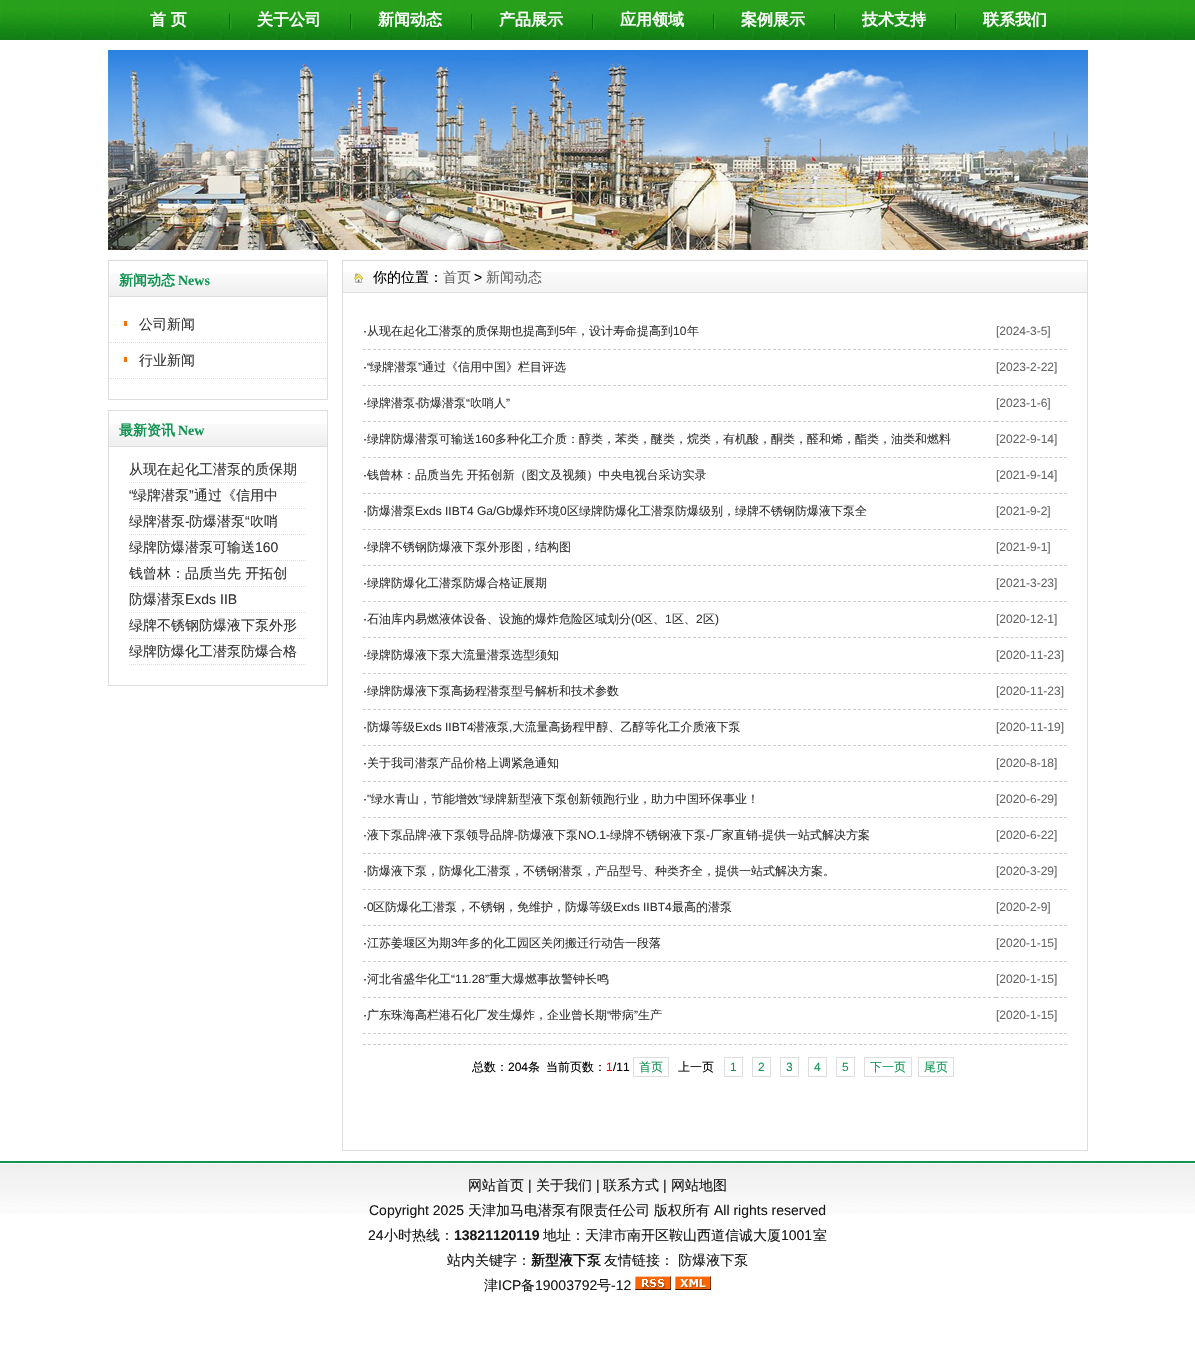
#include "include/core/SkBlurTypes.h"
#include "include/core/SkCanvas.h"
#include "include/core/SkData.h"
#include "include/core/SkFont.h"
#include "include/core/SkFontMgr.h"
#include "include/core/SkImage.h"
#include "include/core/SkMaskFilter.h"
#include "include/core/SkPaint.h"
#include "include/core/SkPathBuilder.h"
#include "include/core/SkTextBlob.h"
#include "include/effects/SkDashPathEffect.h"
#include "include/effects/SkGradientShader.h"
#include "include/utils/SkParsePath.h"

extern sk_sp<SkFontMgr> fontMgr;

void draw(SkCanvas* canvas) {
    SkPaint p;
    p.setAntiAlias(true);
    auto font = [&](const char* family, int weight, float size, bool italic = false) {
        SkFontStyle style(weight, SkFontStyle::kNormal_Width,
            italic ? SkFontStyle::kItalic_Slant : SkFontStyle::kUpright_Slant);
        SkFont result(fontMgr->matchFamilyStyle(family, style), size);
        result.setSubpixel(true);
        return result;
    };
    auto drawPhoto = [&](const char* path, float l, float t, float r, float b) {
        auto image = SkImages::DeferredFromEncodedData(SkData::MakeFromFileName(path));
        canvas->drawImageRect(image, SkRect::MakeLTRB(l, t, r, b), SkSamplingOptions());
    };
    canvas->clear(0xFFFFFFFF);
    drawPhoto("media/1.png", 0, 0, 1195, 40);
    auto font1 = font("WenQuanYi Zen Hei", 700, 16);
    p.setColor(0xFFFFFFFF);
    canvas->drawString("首 页", 150, 25, font1, p);
    drawPhoto("media/2.png", 229, 13, 243, 32);
    canvas->drawString("关于公司", 257, 25, font1, p);
    drawPhoto("media/3.png", 350, 0, 365, 38);
    canvas->drawString("新闻动态", 378, 25, font1, p);
    drawPhoto("media/4.png", 471, 0, 477, 38);
    canvas->drawString("产品展示", 499, 25, font1, p);
    drawPhoto("media/5.png", 592, 13, 607, 32);
    canvas->drawString("应用领域", 620, 25, font1, p);
    drawPhoto("media/6.png", 713, 0, 729, 38);
    canvas->drawString("案例展示", 741, 25, font1, p);
    drawPhoto("media/7.png", 834, 0, 841, 38);
    canvas->drawString("技术支持", 862, 25, font1, p);
    drawPhoto("media/8.png", 955, 13, 971, 32);
    canvas->drawString("联系我们", 983, 25, font1, p);
    drawPhoto("media/9.png", 108, 50, 1088, 250);
    p.setStyle(SkPaint::kStroke_Style);
    p.setStrokeWidth(1);
    p.setColor(0xFFDDDDDD);
    canvas->drawRect(SkRect::MakeLTRB(108.5f, 260.5f, 327.5f, 399.5f), p);
    drawPhoto("media/10.png", 109, 274, 327, 296);
    p.setStyle(SkPaint::kFill_Style);
    canvas->drawRect(SkRect::MakeLTRB(109, 296, 327, 297), p);
    auto font2 = font("WenQuanYi Zen Hei", 700, 14);
    p.setColor(0xFF109451);
    canvas->drawString("新闻动态", 119, 285, font2, p);
    auto font3 = font("Liberation Serif", 700, 14);
    canvas->drawString("News", 178, 285, font3, p);
    p.setColor(0xFFFF7100);
    canvas->drawRect(SkRect::MakeLTRB(124, 321, 127, 326), p);
    p.setStyle(SkPaint::kStroke_Style);
    p.setColor(0xFFDDDDDD);
    p.setPathEffect(SkDashPathEffect::Make({{1, 1}}, 0));
    canvas->drawPath(SkPathBuilder().moveTo(109, 342.5f).lineTo(327, 342.5f).detach(), p);
    p.setPathEffect(nullptr);
    auto font4 = font("WenQuanYi Zen Hei", 500, 14);
    p.setStyle(SkPaint::kFill_Style);
    p.setColor(0xFF333333);
    canvas->drawString("公司新闻", 139, 329, font4, p);
    p.setColor(0xFFFF7100);
    canvas->drawRect(SkRect::MakeLTRB(124, 357, 127, 362), p);
    p.setStyle(SkPaint::kStroke_Style);
    p.setColor(0xFFDDDDDD);
    p.setPathEffect(SkDashPathEffect::Make({{1, 1}}, 0));
    canvas->drawPath(SkPathBuilder().moveTo(109, 378.5f).lineTo(327, 378.5f).detach(), p);
    p.setPathEffect(nullptr);
    p.setStyle(SkPaint::kFill_Style);
    p.setColor(0xFF333333);
    canvas->drawString("行业新闻", 139, 365, font4, p);
    p.setStyle(SkPaint::kStroke_Style);
    p.setColor(0xFFDDDDDD);
    canvas->drawRect(SkRect::MakeLTRB(108.5f, 410.5f, 327.5f, 685.5f), p);
    drawPhoto("media/10.png", 109, 424, 327, 446);
    p.setStyle(SkPaint::kFill_Style);
    canvas->drawRect(SkRect::MakeLTRB(109, 446, 327, 447), p);
    p.setColor(0xFF109451);
    canvas->drawString("最新资讯", 119, 435, font2, p);
    canvas->drawString("New", 178, 435, font3, p);
    p.setStyle(SkPaint::kStroke_Style);
    p.setColor(0xFFDDDDDD);
    p.setPathEffect(SkDashPathEffect::Make({{1, 1}}, 0));
    canvas->drawPath(SkPathBuilder().moveTo(129, 482.5f).lineTo(307, 482.5f).detach(), p);
    p.setPathEffect(nullptr);
    p.setStyle(SkPaint::kFill_Style);
    p.setColor(0xFF333333);
    canvas->drawString("从现在起化工潜泵的质保期", 129, 474, font4, p);
    p.setStyle(SkPaint::kStroke_Style);
    p.setColor(0xFFDDDDDD);
    p.setPathEffect(SkDashPathEffect::Make({{1, 1}}, 0));
    canvas->drawPath(SkPathBuilder().moveTo(129, 508.5f).lineTo(307, 508.5f).detach(), p);
    p.setPathEffect(nullptr);
    auto font5 = font("Liberation Sans", 400, 14);
    p.setStyle(SkPaint::kFill_Style);
    p.setColor(0xFF333333);
    canvas->drawString("“", 129, 500, font5, p);
    canvas->drawString("绿牌潜泵", 133, 500, font4, p);
    canvas->drawString("”", 189, 500, font5, p);
    canvas->drawString("通过《信用中", 194, 500, font4, p);
    p.setStyle(SkPaint::kStroke_Style);
    p.setColor(0xFFDDDDDD);
    p.setPathEffect(SkDashPathEffect::Make({{1, 1}}, 0));
    canvas->drawPath(SkPathBuilder().moveTo(129, 534.5f).lineTo(307, 534.5f).detach(), p);
    p.setPathEffect(nullptr);
    p.setStyle(SkPaint::kFill_Style);
    p.setColor(0xFF333333);
    canvas->drawString("绿牌潜泵", 129, 526, font4, p);
    canvas->drawString("防爆潜泵", 189, 526, font4, p);
    canvas->drawString("“", 245, 526, font5, p);
    canvas->drawString("吹哨", 250, 526, font4, p);
    canvas->drawString("-", 185, 526, font5, p);
    p.setStyle(SkPaint::kStroke_Style);
    p.setColor(0xFFDDDDDD);
    p.setPathEffect(SkDashPathEffect::Make({{1, 1}}, 0));
    canvas->drawPath(SkPathBuilder().moveTo(129, 560.5f).lineTo(307, 560.5f).detach(), p);
    p.setPathEffect(nullptr);
    p.setStyle(SkPaint::kFill_Style);
    p.setColor(0xFF333333);
    canvas->drawString("绿牌防爆潜泵可输送", 129, 552, font4, p);
    canvas->drawString("160", 255, 552, font5, p);
    p.setStyle(SkPaint::kStroke_Style);
    p.setColor(0xFFDDDDDD);
    p.setPathEffect(SkDashPathEffect::Make({{1, 1}}, 0));
    canvas->drawPath(SkPathBuilder().moveTo(129, 586.5f).lineTo(307, 586.5f).detach(), p);
    p.setPathEffect(nullptr);
    p.setStyle(SkPaint::kFill_Style);
    p.setColor(0xFF333333);
    canvas->drawString("钱曾林：品质当先 开拓创", 129, 578, font4, p);
    p.setStyle(SkPaint::kStroke_Style);
    p.setColor(0xFFDDDDDD);
    p.setPathEffect(SkDashPathEffect::Make({{1, 1}}, 0));
    canvas->drawPath(SkPathBuilder().moveTo(129, 612.5f).lineTo(307, 612.5f).detach(), p);
    p.setPathEffect(nullptr);
    p.setStyle(SkPaint::kFill_Style);
    p.setColor(0xFF333333);
    canvas->drawString("防爆潜泵", 129, 604, font4, p);
    canvas->drawString("Exds IIB", 185, 604, font5, p);
    p.setStyle(SkPaint::kStroke_Style);
    p.setColor(0xFFDDDDDD);
    p.setPathEffect(SkDashPathEffect::Make({{1, 1}}, 0));
    canvas->drawPath(SkPathBuilder().moveTo(129, 638.5f).lineTo(307, 638.5f).detach(), p);
    p.setPathEffect(nullptr);
    p.setStyle(SkPaint::kFill_Style);
    p.setColor(0xFF333333);
    canvas->drawString("绿牌不锈钢防爆液下泵外形", 129, 630, font4, p);
    p.setStyle(SkPaint::kStroke_Style);
    p.setColor(0xFFDDDDDD);
    p.setPathEffect(SkDashPathEffect::Make({{1, 1}}, 0));
    canvas->drawPath(SkPathBuilder().moveTo(129, 664.5f).lineTo(307, 664.5f).detach(), p);
    p.setPathEffect(nullptr);
    p.setStyle(SkPaint::kFill_Style);
    p.setColor(0xFF333333);
    canvas->drawString("绿牌防爆化工潜泵防爆合格", 129, 656, font4, p);
    p.setStyle(SkPaint::kStroke_Style);
    p.setColor(0xFFDDDDDD);
    canvas->drawRect(SkRect::MakeLTRB(342.5f, 260.5f, 1087.5f, 1150.5f), p);
    drawPhoto("media/11.png", 343, 272, 1087, 293);
    drawPhoto("media/12.png", 354, 273, 363, 284);
    p.setStyle(SkPaint::kFill_Style);
    p.setColor(0xFF000000);
    canvas->drawString("你的位置：", 373, 282, font4, p);
    p.setColor(0xFF666666);
    canvas->drawString("首页", 443, 282, font4, p);
    p.setColor(0xFF000000);
    canvas->drawString(">", 474, 282, font5, p);
    p.setColor(0xFF666666);
    canvas->drawString("新闻动态", 486, 282, font4, p);
    p.setStyle(SkPaint::kStroke_Style);
    p.setColor(0xFFCCCCCC);
    p.setPathEffect(SkDashPathEffect::Make({{3, 2}}, 0));
    canvas->drawPath(SkPathBuilder().moveTo(363, 349.5f).lineTo(996, 349.5f).detach(), p);
    p.setPathEffect(nullptr);
    auto font6 = font("Liberation Sans", 400, 12);
    p.setStyle(SkPaint::kFill_Style);
    p.setColor(0xFF000000);
    canvas->drawString("·", 363, 335, font6, p);
    auto font7 = font("WenQuanYi Zen Hei", 500, 12);
    p.setColor(0xFF333333);
    canvas->drawString("从现在起化工潜泵的质保期也提高到", 367, 335, font7, p);
    canvas->drawString("5", 559, 335, font6, p);
    canvas->drawString("年，设计寿命提高到", 565, 335, font7, p);
    canvas->drawString("10", 673, 335, font6, p);
    canvas->drawString("年", 687, 335, font7, p);
    p.setStyle(SkPaint::kStroke_Style);
    p.setColor(0xFFCCCCCC);
    p.setPathEffect(SkDashPathEffect::Make({{3, 1.86f}}, 0));
    canvas->drawPath(SkPathBuilder().moveTo(996, 349.5f).lineTo(1067, 349.5f).detach(), p);
    p.setPathEffect(nullptr);
    p.setStyle(SkPaint::kFill_Style);
    p.setColor(0xFF666666);
    canvas->drawString("[2024-3-5]", 996, 335, font6, p);
    p.setStyle(SkPaint::kStroke_Style);
    p.setColor(0xFFCCCCCC);
    p.setPathEffect(SkDashPathEffect::Make({{3, 2}}, 0));
    canvas->drawPath(SkPathBuilder().moveTo(363, 385.5f).lineTo(996, 385.5f).detach(), p);
    p.setPathEffect(nullptr);
    p.setStyle(SkPaint::kFill_Style);
    p.setColor(0xFF333333);
    canvas->drawString("“", 367, 371, font6, p);
    canvas->drawString("绿牌潜泵", 370, 371, font7, p);
    canvas->drawString("”", 418, 371, font6, p);
    canvas->drawString("通过《信用中国》栏目评选", 422, 371, font7, p);
    p.setColor(0xFF000000);
    canvas->drawString("·", 363, 371, font6, p);
    p.setStyle(SkPaint::kStroke_Style);
    p.setColor(0xFFCCCCCC);
    p.setPathEffect(SkDashPathEffect::Make({{3, 1.86f}}, 0));
    canvas->drawPath(SkPathBuilder().moveTo(996, 385.5f).lineTo(1067, 385.5f).detach(), p);
    p.setPathEffect(nullptr);
    p.setStyle(SkPaint::kFill_Style);
    p.setColor(0xFF666666);
    canvas->drawString("[2023-2-22]", 996, 371, font6, p);
    p.setStyle(SkPaint::kStroke_Style);
    p.setColor(0xFFCCCCCC);
    p.setPathEffect(SkDashPathEffect::Make({{3, 2}}, 0));
    canvas->drawPath(SkPathBuilder().moveTo(363, 421.5f).lineTo(996, 421.5f).detach(), p);
    p.setPathEffect(nullptr);
    p.setStyle(SkPaint::kFill_Style);
    p.setColor(0xFF333333);
    canvas->drawString("绿牌潜泵", 367, 407, font7, p);
    canvas->drawString("防爆潜泵", 418, 407, font7, p);
    canvas->drawString("“", 466, 407, font6, p);
    canvas->drawString("吹哨人", 470, 407, font7, p);
    canvas->drawString("”", 506, 407, font6, p);
    p.setColor(0xFF000000);
    canvas->drawString("·", 363, 407, font6, p);
    p.setColor(0xFF333333);
    canvas->drawString("-", 415, 407, font6, p);
    p.setStyle(SkPaint::kStroke_Style);
    p.setColor(0xFFCCCCCC);
    p.setPathEffect(SkDashPathEffect::Make({{3, 1.86f}}, 0));
    canvas->drawPath(SkPathBuilder().moveTo(996, 421.5f).lineTo(1067, 421.5f).detach(), p);
    p.setPathEffect(nullptr);
    p.setStyle(SkPaint::kFill_Style);
    p.setColor(0xFF666666);
    canvas->drawString("[2023-1-6]", 996, 407, font6, p);
    p.setStyle(SkPaint::kStroke_Style);
    p.setColor(0xFFCCCCCC);
    p.setPathEffect(SkDashPathEffect::Make({{3, 2}}, 0));
    canvas->drawPath(SkPathBuilder().moveTo(363, 457.5f).lineTo(996, 457.5f).detach(), p);
    p.setPathEffect(nullptr);
    p.setStyle(SkPaint::kFill_Style);
    p.setColor(0xFF000000);
    canvas->drawString("·", 363, 443, font6, p);
    p.setColor(0xFF333333);
    canvas->drawString("绿牌防爆潜泵可输送", 367, 443, font7, p);
    canvas->drawString("160", 475, 443, font6, p);
    canvas->drawString("多种化工介质：醇类，苯类，醚类，烷类，有机酸，酮类，醛和烯，酯类，油类和燃料", 495, 443, font7, p);
    p.setStyle(SkPaint::kStroke_Style);
    p.setColor(0xFFCCCCCC);
    p.setPathEffect(SkDashPathEffect::Make({{3, 1.86f}}, 0));
    canvas->drawPath(SkPathBuilder().moveTo(996, 457.5f).lineTo(1067, 457.5f).detach(), p);
    p.setPathEffect(nullptr);
    p.setStyle(SkPaint::kFill_Style);
    p.setColor(0xFF666666);
    canvas->drawString("[2022-9-14]", 996, 443, font6, p);
    p.setStyle(SkPaint::kStroke_Style);
    p.setColor(0xFFCCCCCC);
    p.setPathEffect(SkDashPathEffect::Make({{3, 2}}, 0));
    canvas->drawPath(SkPathBuilder().moveTo(363, 493.5f).lineTo(996, 493.5f).detach(), p);
    p.setPathEffect(nullptr);
    p.setStyle(SkPaint::kFill_Style);
    p.setColor(0xFF000000);
    canvas->drawString("·", 363, 479, font6, p);
    p.setColor(0xFF333333);
    canvas->drawString("钱曾林：品质当先 开拓创新（图文及视频）中央电视台采访实录", 367, 479, font7, p);
    p.setStyle(SkPaint::kStroke_Style);
    p.setColor(0xFFCCCCCC);
    p.setPathEffect(SkDashPathEffect::Make({{3, 1.86f}}, 0));
    canvas->drawPath(SkPathBuilder().moveTo(996, 493.5f).lineTo(1067, 493.5f).detach(), p);
    p.setPathEffect(nullptr);
    p.setStyle(SkPaint::kFill_Style);
    p.setColor(0xFF666666);
    canvas->drawString("[2021-9-14]", 996, 479, font6, p);
    p.setStyle(SkPaint::kStroke_Style);
    p.setColor(0xFFCCCCCC);
    p.setPathEffect(SkDashPathEffect::Make({{3, 2}}, 0));
    canvas->drawPath(SkPathBuilder().moveTo(363, 529.5f).lineTo(996, 529.5f).detach(), p);
    p.setPathEffect(nullptr);
    p.setStyle(SkPaint::kFill_Style);
    p.setColor(0xFF000000);
    canvas->drawString("·", 363, 515, font6, p);
    p.setColor(0xFF333333);
    canvas->drawString("防爆潜泵", 367, 515, font7, p);
    canvas->drawString("Exds IIBT4 Ga/Gb", 415, 515, font6, p);
    canvas->drawString("爆炸环境", 512, 515, font7, p);
    canvas->drawString("0", 560, 515, font6, p);
    canvas->drawString("区绿牌防爆化工潜泵防爆级别，绿牌不锈钢防爆液下泵全", 567, 515, font7, p);
    p.setStyle(SkPaint::kStroke_Style);
    p.setColor(0xFFCCCCCC);
    p.setPathEffect(SkDashPathEffect::Make({{3, 1.86f}}, 0));
    canvas->drawPath(SkPathBuilder().moveTo(996, 529.5f).lineTo(1067, 529.5f).detach(), p);
    p.setPathEffect(nullptr);
    p.setStyle(SkPaint::kFill_Style);
    p.setColor(0xFF666666);
    canvas->drawString("[2021-9-2]", 996, 515, font6, p);
    p.setStyle(SkPaint::kStroke_Style);
    p.setColor(0xFFCCCCCC);
    p.setPathEffect(SkDashPathEffect::Make({{3, 2}}, 0));
    canvas->drawPath(SkPathBuilder().moveTo(363, 565.5f).lineTo(996, 565.5f).detach(), p);
    p.setPathEffect(nullptr);
    p.setStyle(SkPaint::kFill_Style);
    p.setColor(0xFF000000);
    canvas->drawString("·", 363, 551, font6, p);
    p.setColor(0xFF333333);
    canvas->drawString("绿牌不锈钢防爆液下泵外形图，结构图", 367, 551, font7, p);
    p.setStyle(SkPaint::kStroke_Style);
    p.setColor(0xFFCCCCCC);
    p.setPathEffect(SkDashPathEffect::Make({{3, 1.86f}}, 0));
    canvas->drawPath(SkPathBuilder().moveTo(996, 565.5f).lineTo(1067, 565.5f).detach(), p);
    p.setPathEffect(nullptr);
    p.setStyle(SkPaint::kFill_Style);
    p.setColor(0xFF666666);
    canvas->drawString("[2021-9-1]", 996, 551, font6, p);
    p.setStyle(SkPaint::kStroke_Style);
    p.setColor(0xFFCCCCCC);
    p.setPathEffect(SkDashPathEffect::Make({{3, 2}}, 0));
    canvas->drawPath(SkPathBuilder().moveTo(363, 601.5f).lineTo(996, 601.5f).detach(), p);
    p.setPathEffect(nullptr);
    p.setStyle(SkPaint::kFill_Style);
    p.setColor(0xFF000000);
    canvas->drawString("·", 363, 587, font6, p);
    p.setColor(0xFF333333);
    canvas->drawString("绿牌防爆化工潜泵防爆合格证展期", 367, 587, font7, p);
    p.setStyle(SkPaint::kStroke_Style);
    p.setColor(0xFFCCCCCC);
    p.setPathEffect(SkDashPathEffect::Make({{3, 1.86f}}, 0));
    canvas->drawPath(SkPathBuilder().moveTo(996, 601.5f).lineTo(1067, 601.5f).detach(), p);
    p.setPathEffect(nullptr);
    p.setStyle(SkPaint::kFill_Style);
    p.setColor(0xFF666666);
    canvas->drawString("[2021-3-23]", 996, 587, font6, p);
    p.setStyle(SkPaint::kStroke_Style);
    p.setColor(0xFFCCCCCC);
    p.setPathEffect(SkDashPathEffect::Make({{3, 2}}, 0));
    canvas->drawPath(SkPathBuilder().moveTo(363, 637.5f).lineTo(996, 637.5f).detach(), p);
    p.setPathEffect(nullptr);
    p.setStyle(SkPaint::kFill_Style);
    p.setColor(0xFF000000);
    canvas->drawString("·", 363, 623, font6, p);
    p.setColor(0xFF333333);
    canvas->drawString("石油库内易燃液体设备、设施的爆炸危险区域划分", 367, 623, font7, p);
    canvas->drawString("(0", 631, 623, font6, p);
    canvas->drawString("区、", 641, 623, font7, p);
    canvas->drawString("1", 665, 623, font6, p);
    canvas->drawString("区、", 672, 623, font7, p);
    canvas->drawString("2", 696, 623, font6, p);
    canvas->drawString("区", 703, 623, font7, p);
    canvas->drawString(")", 715, 623, font6, p);
    p.setStyle(SkPaint::kStroke_Style);
    p.setColor(0xFFCCCCCC);
    p.setPathEffect(SkDashPathEffect::Make({{3, 1.86f}}, 0));
    canvas->drawPath(SkPathBuilder().moveTo(996, 637.5f).lineTo(1067, 637.5f).detach(), p);
    p.setPathEffect(nullptr);
    p.setStyle(SkPaint::kFill_Style);
    p.setColor(0xFF666666);
    canvas->drawString("[2020-12-1]", 996, 623, font6, p);
    p.setStyle(SkPaint::kStroke_Style);
    p.setColor(0xFFCCCCCC);
    p.setPathEffect(SkDashPathEffect::Make({{3, 2}}, 0));
    canvas->drawPath(SkPathBuilder().moveTo(363, 673.5f).lineTo(996, 673.5f).detach(), p);
    p.setPathEffect(nullptr);
    p.setStyle(SkPaint::kFill_Style);
    p.setColor(0xFF000000);
    canvas->drawString("·", 363, 659, font6, p);
    p.setColor(0xFF333333);
    canvas->drawString("绿牌防爆液下泵大流量潜泵选型须知", 367, 659, font7, p);
    p.setStyle(SkPaint::kStroke_Style);
    p.setColor(0xFFCCCCCC);
    p.setPathEffect(SkDashPathEffect::Make({{3, 1.86f}}, 0));
    canvas->drawPath(SkPathBuilder().moveTo(996, 673.5f).lineTo(1067, 673.5f).detach(), p);
    p.setPathEffect(nullptr);
    p.setStyle(SkPaint::kFill_Style);
    p.setColor(0xFF666666);
    canvas->drawString("[2020-11-23]", 996, 659, font6, p);
    p.setStyle(SkPaint::kStroke_Style);
    p.setColor(0xFFCCCCCC);
    p.setPathEffect(SkDashPathEffect::Make({{3, 2}}, 0));
    canvas->drawPath(SkPathBuilder().moveTo(363, 709.5f).lineTo(996, 709.5f).detach(), p);
    p.setPathEffect(nullptr);
    p.setStyle(SkPaint::kFill_Style);
    p.setColor(0xFF000000);
    canvas->drawString("·", 363, 695, font6, p);
    p.setColor(0xFF333333);
    canvas->drawString("绿牌防爆液下泵高扬程潜泵型号解析和技术参数", 367, 695, font7, p);
    p.setStyle(SkPaint::kStroke_Style);
    p.setColor(0xFFCCCCCC);
    p.setPathEffect(SkDashPathEffect::Make({{3, 1.86f}}, 0));
    canvas->drawPath(SkPathBuilder().moveTo(996, 709.5f).lineTo(1067, 709.5f).detach(), p);
    p.setPathEffect(nullptr);
    p.setStyle(SkPaint::kFill_Style);
    p.setColor(0xFF666666);
    canvas->drawString("[2020-11-23]", 996, 695, font6, p);
    p.setStyle(SkPaint::kStroke_Style);
    p.setColor(0xFFCCCCCC);
    p.setPathEffect(SkDashPathEffect::Make({{3, 2}}, 0));
    canvas->drawPath(SkPathBuilder().moveTo(363, 745.5f).lineTo(996, 745.5f).detach(), p);
    p.setPathEffect(nullptr);
    p.setStyle(SkPaint::kFill_Style);
    p.setColor(0xFF000000);
    canvas->drawString("·", 363, 731, font6, p);
    p.setColor(0xFF333333);
    canvas->drawString("防爆等级", 367, 731, font7, p);
    canvas->drawString("Exds IIBT4", 415, 731, font6, p);
    canvas->drawString("潜液泵 大流量高扬程甲醇、乙醇等化工介质液下泵", 473, 731, font7, p);
    canvas->drawString(",", 509, 731, font6, p);
    p.setStyle(SkPaint::kStroke_Style);
    p.setColor(0xFFCCCCCC);
    p.setPathEffect(SkDashPathEffect::Make({{3, 1.86f}}, 0));
    canvas->drawPath(SkPathBuilder().moveTo(996, 745.5f).lineTo(1067, 745.5f).detach(), p);
    p.setPathEffect(nullptr);
    p.setStyle(SkPaint::kFill_Style);
    p.setColor(0xFF666666);
    canvas->drawString("[2020-11-19]", 996, 731, font6, p);
    p.setStyle(SkPaint::kStroke_Style);
    p.setColor(0xFFCCCCCC);
    p.setPathEffect(SkDashPathEffect::Make({{3, 2}}, 0));
    canvas->drawPath(SkPathBuilder().moveTo(363, 781.5f).lineTo(996, 781.5f).detach(), p);
    p.setPathEffect(nullptr);
    p.setStyle(SkPaint::kFill_Style);
    p.setColor(0xFF000000);
    canvas->drawString("·", 363, 767, font6, p);
    p.setColor(0xFF333333);
    canvas->drawString("关于我司潜泵产品价格上调紧急通知", 367, 767, font7, p);
    p.setStyle(SkPaint::kStroke_Style);
    p.setColor(0xFFCCCCCC);
    p.setPathEffect(SkDashPathEffect::Make({{3, 1.86f}}, 0));
    canvas->drawPath(SkPathBuilder().moveTo(996, 781.5f).lineTo(1067, 781.5f).detach(), p);
    p.setPathEffect(nullptr);
    p.setStyle(SkPaint::kFill_Style);
    p.setColor(0xFF666666);
    canvas->drawString("[2020-8-18]", 996, 767, font6, p);
    p.setStyle(SkPaint::kStroke_Style);
    p.setColor(0xFFCCCCCC);
    p.setPathEffect(SkDashPathEffect::Make({{3, 2}}, 0));
    canvas->drawPath(SkPathBuilder().moveTo(363, 817.5f).lineTo(996, 817.5f).detach(), p);
    p.setPathEffect(nullptr);
    p.setStyle(SkPaint::kFill_Style);
    p.setColor(0xFF333333);
    canvas->drawString("\"", 367, 803, font6, p);
    canvas->drawString("绿水青山，节能增效", 371, 803, font7, p);
    canvas->drawString("\"", 479, 803, font6, p);
    canvas->drawString("绿牌新型液下泵创新领跑行业，助力中国环保事业！", 483, 803, font7, p);
    p.setColor(0xFF000000);
    canvas->drawString("·", 363, 803, font6, p);
    p.setStyle(SkPaint::kStroke_Style);
    p.setColor(0xFFCCCCCC);
    p.setPathEffect(SkDashPathEffect::Make({{3, 1.86f}}, 0));
    canvas->drawPath(SkPathBuilder().moveTo(996, 817.5f).lineTo(1067, 817.5f).detach(), p);
    p.setPathEffect(nullptr);
    p.setStyle(SkPaint::kFill_Style);
    p.setColor(0xFF666666);
    canvas->drawString("[2020-6-29]", 996, 803, font6, p);
    p.setStyle(SkPaint::kStroke_Style);
    p.setColor(0xFFCCCCCC);
    p.setPathEffect(SkDashPathEffect::Make({{3, 2}}, 0));
    canvas->drawPath(SkPathBuilder().moveTo(363, 853.5f).lineTo(996, 853.5f).detach(), p);
    p.setPathEffect(nullptr);
    p.setStyle(SkPaint::kFill_Style);
    p.setColor(0xFF000000);
    canvas->drawString("·", 363, 839, font6, p);
    p.setColor(0xFF333333);
    canvas->drawString("液下泵品牌", 367, 839, font7, p);
    canvas->drawString("-", 427, 839, font6, p);
    canvas->drawString("液下泵领导品牌", 430, 839, font7, p);
    canvas->drawString("-", 514, 839, font6, p);
    canvas->drawString("防爆液下泵", 518, 839, font7, p);
    canvas->drawString("NO.1-", 578, 839, font6, p);
    canvas->drawString("绿牌不锈钢液下泵", 610, 839, font7, p);
    canvas->drawString("-", 706, 839, font6, p);
    canvas->drawString("厂家直销", 710, 839, font7, p);
    canvas->drawString("-", 758, 839, font6, p);
    canvas->drawString("提供一站式解决方案", 762, 839, font7, p);
    p.setStyle(SkPaint::kStroke_Style);
    p.setColor(0xFFCCCCCC);
    p.setPathEffect(SkDashPathEffect::Make({{3, 1.86f}}, 0));
    canvas->drawPath(SkPathBuilder().moveTo(996, 853.5f).lineTo(1067, 853.5f).detach(), p);
    p.setPathEffect(nullptr);
    p.setStyle(SkPaint::kFill_Style);
    p.setColor(0xFF666666);
    canvas->drawString("[2020-6-22]", 996, 839, font6, p);
    p.setStyle(SkPaint::kStroke_Style);
    p.setColor(0xFFCCCCCC);
    p.setPathEffect(SkDashPathEffect::Make({{3, 2}}, 0));
    canvas->drawPath(SkPathBuilder().moveTo(363, 889.5f).lineTo(996, 889.5f).detach(), p);
    p.setPathEffect(nullptr);
    p.setStyle(SkPaint::kFill_Style);
    p.setColor(0xFF000000);
    canvas->drawString("·", 363, 875, font6, p);
    p.setColor(0xFF333333);
    canvas->drawString("防爆液下泵，防爆化工潜泵，不锈钢潜泵，产品型号、种类齐全，提供一站式解决方案。", 367, 875, font7, p);
    p.setStyle(SkPaint::kStroke_Style);
    p.setColor(0xFFCCCCCC);
    p.setPathEffect(SkDashPathEffect::Make({{3, 1.86f}}, 0));
    canvas->drawPath(SkPathBuilder().moveTo(996, 889.5f).lineTo(1067, 889.5f).detach(), p);
    p.setPathEffect(nullptr);
    p.setStyle(SkPaint::kFill_Style);
    p.setColor(0xFF666666);
    canvas->drawString("[2020-3-29]", 996, 875, font6, p);
    p.setStyle(SkPaint::kStroke_Style);
    p.setColor(0xFFCCCCCC);
    p.setPathEffect(SkDashPathEffect::Make({{3, 2}}, 0));
    canvas->drawPath(SkPathBuilder().moveTo(363, 925.5f).lineTo(996, 925.5f).detach(), p);
    p.setPathEffect(nullptr);
    p.setStyle(SkPaint::kFill_Style);
    p.setColor(0xFF000000);
    canvas->drawString("·", 363, 911, font6, p);
    p.setColor(0xFF333333);
    canvas->drawString("0", 367, 911, font6, p);
    canvas->drawString("区防爆化工潜泵，不锈钢，免维护，防爆等级", 373, 911, font7, p);
    canvas->drawString("Exds IIBT4", 613, 911, font6, p);
    canvas->drawString("最高的潜泵", 672, 911, font7, p);
    p.setStyle(SkPaint::kStroke_Style);
    p.setColor(0xFFCCCCCC);
    p.setPathEffect(SkDashPathEffect::Make({{3, 1.86f}}, 0));
    canvas->drawPath(SkPathBuilder().moveTo(996, 925.5f).lineTo(1067, 925.5f).detach(), p);
    p.setPathEffect(nullptr);
    p.setStyle(SkPaint::kFill_Style);
    p.setColor(0xFF666666);
    canvas->drawString("[2020-2-9]", 996, 911, font6, p);
    p.setStyle(SkPaint::kStroke_Style);
    p.setColor(0xFFCCCCCC);
    p.setPathEffect(SkDashPathEffect::Make({{3, 2}}, 0));
    canvas->drawPath(SkPathBuilder().moveTo(363, 961.5f).lineTo(996, 961.5f).detach(), p);
    p.setPathEffect(nullptr);
    p.setStyle(SkPaint::kFill_Style);
    p.setColor(0xFF000000);
    canvas->drawString("·", 363, 947, font6, p);
    p.setColor(0xFF333333);
    canvas->drawString("江苏姜堰区为期", 367, 947, font7, p);
    canvas->drawString("3", 451, 947, font6, p);
    canvas->drawString("年多的化工园区关闭搬迁行动告一段落", 457, 947, font7, p);
    p.setStyle(SkPaint::kStroke_Style);
    p.setColor(0xFFCCCCCC);
    p.setPathEffect(SkDashPathEffect::Make({{3, 1.86f}}, 0));
    canvas->drawPath(SkPathBuilder().moveTo(996, 961.5f).lineTo(1067, 961.5f).detach(), p);
    p.setPathEffect(nullptr);
    p.setStyle(SkPaint::kFill_Style);
    p.setColor(0xFF666666);
    canvas->drawString("[2020-1-15]", 996, 947, font6, p);
    p.setStyle(SkPaint::kStroke_Style);
    p.setColor(0xFFCCCCCC);
    p.setPathEffect(SkDashPathEffect::Make({{3, 2}}, 0));
    canvas->drawPath(SkPathBuilder().moveTo(363, 997.5f).lineTo(996, 997.5f).detach(), p);
    p.setPathEffect(nullptr);
    p.setStyle(SkPaint::kFill_Style);
    p.setColor(0xFF000000);
    canvas->drawString("·", 363, 983, font6, p);
    p.setColor(0xFF333333);
    canvas->drawString("河北省盛华化工", 367, 983, font7, p);
    canvas->drawString("“11.28”", 451, 983, font6, p);
    canvas->drawString("重大爆燃事故警钟长鸣", 489, 983, font7, p);
    p.setStyle(SkPaint::kStroke_Style);
    p.setColor(0xFFCCCCCC);
    p.setPathEffect(SkDashPathEffect::Make({{3, 1.86f}}, 0));
    canvas->drawPath(SkPathBuilder().moveTo(996, 997.5f).lineTo(1067, 997.5f).detach(), p);
    p.setPathEffect(nullptr);
    p.setStyle(SkPaint::kFill_Style);
    p.setColor(0xFF666666);
    canvas->drawString("[2020-1-15]", 996, 983, font6, p);
    p.setStyle(SkPaint::kStroke_Style);
    p.setColor(0xFFCCCCCC);
    p.setPathEffect(SkDashPathEffect::Make({{3, 2}}, 0));
    canvas->drawPath(SkPathBuilder().moveTo(363, 1033.5f).lineTo(996, 1033.5f).detach(), p);
    p.setPathEffect(nullptr);
    p.setStyle(SkPaint::kFill_Style);
    p.setColor(0xFF333333);
    canvas->drawString("广东珠海高栏港石化厂发生爆炸，企业曾长期", 367, 1019, font7, p);
    canvas->drawString("“", 607, 1019, font6, p);
    canvas->drawString("带病", 610, 1019, font7, p);
    canvas->drawString("”", 634, 1019, font6, p);
    canvas->drawString("生产", 638, 1019, font7, p);
    p.setColor(0xFF000000);
    canvas->drawString("·", 363, 1019, font6, p);
    p.setStyle(SkPaint::kStroke_Style);
    p.setColor(0xFFCCCCCC);
    p.setPathEffect(SkDashPathEffect::Make({{3, 1.86f}}, 0));
    canvas->drawPath(SkPathBuilder().moveTo(996, 1033.5f).lineTo(1067, 1033.5f).detach(), p);
    p.setPathEffect(nullptr);
    p.setStyle(SkPaint::kFill_Style);
    p.setColor(0xFF666666);
    canvas->drawString("[2020-1-15]", 996, 1019, font6, p);
    p.setStyle(SkPaint::kStroke_Style);
    p.setColor(0xFFCCCCCC);
    p.setPathEffect(SkDashPathEffect::Make({{3, 2.01f}}, 0));
    canvas->drawPath(SkPathBuilder().moveTo(363, 1044.5f).lineTo(1067, 1044.5f).detach(), p);
    p.setPathEffect(nullptr);
    p.setStyle(SkPaint::kFill_Style);
    p.setColor(0xFF000000);
    canvas->drawString("总数：", 472, 1071, font7, p);
    canvas->drawString("204", 508, 1071, font6, p);
    canvas->drawString("条", 528, 1071, font7, p);
    canvas->drawString("当前页数：", 546, 1071, font7, p);
    p.setColor(0xFFFF0000);
    canvas->drawString("1", 606, 1071, font6, p);
    p.setColor(0xFF000000);
    canvas->drawString("/11", 613, 1071, font6, p);
    p.setStyle(SkPaint::kStroke_Style);
    p.setColor(0xFFDEDEDC);
    canvas->drawRect(SkRect::MakeLTRB(633.5f, 1057.5f, 668.5f, 1076.5f), p);
    p.setStyle(SkPaint::kFill_Style);
    p.setColor(0xFF109451);
    canvas->drawString("首页", 639, 1071, font7, p);
    p.setColor(0xFF000000);
    canvas->drawString("上一页", 678, 1071, font7, p);
    p.setStyle(SkPaint::kStroke_Style);
    p.setColor(0xFFDEDEDC);
    canvas->drawRect(SkRect::MakeLTRB(724.5f, 1057.5f, 742.5f, 1076.5f), p);
    p.setStyle(SkPaint::kFill_Style);
    p.setColor(0xFF109451);
    canvas->drawString("1", 730, 1071, font6, p);
    p.setStyle(SkPaint::kStroke_Style);
    p.setColor(0xFFDEDEDC);
    canvas->drawRect(SkRect::MakeLTRB(752.5f, 1057.5f, 770.5f, 1076.5f), p);
    p.setStyle(SkPaint::kFill_Style);
    p.setColor(0xFF109451);
    canvas->drawString("2", 758, 1071, font6, p);
    p.setStyle(SkPaint::kStroke_Style);
    p.setColor(0xFFDEDEDC);
    canvas->drawRect(SkRect::MakeLTRB(780.5f, 1057.5f, 798.5f, 1076.5f), p);
    p.setStyle(SkPaint::kFill_Style);
    p.setColor(0xFF109451);
    canvas->drawString("3", 786, 1071, font6, p);
    p.setStyle(SkPaint::kStroke_Style);
    p.setColor(0xFFDEDEDC);
    canvas->drawRect(SkRect::MakeLTRB(808.5f, 1057.5f, 826.5f, 1076.5f), p);
    p.setStyle(SkPaint::kFill_Style);
    p.setColor(0xFF109451);
    canvas->drawString("4", 814, 1071, font6, p);
    p.setStyle(SkPaint::kStroke_Style);
    p.setColor(0xFFDEDEDC);
    canvas->drawRect(SkRect::MakeLTRB(836.5f, 1057.5f, 854.5f, 1076.5f), p);
    p.setStyle(SkPaint::kFill_Style);
    p.setColor(0xFF109451);
    canvas->drawString("5", 842, 1071, font6, p);
    p.setStyle(SkPaint::kStroke_Style);
    p.setColor(0xFFDEDEDC);
    canvas->drawRect(SkRect::MakeLTRB(864.5f, 1057.5f, 911.5f, 1076.5f), p);
    p.setStyle(SkPaint::kFill_Style);
    p.setColor(0xFF109451);
    canvas->drawString("下一页", 870, 1071, font7, p);
    p.setStyle(SkPaint::kStroke_Style);
    p.setColor(0xFFDEDEDC);
    canvas->drawRect(SkRect::MakeLTRB(918.5f, 1057.5f, 953.5f, 1076.5f), p);
    p.setStyle(SkPaint::kFill_Style);
    p.setColor(0xFF109451);
    canvas->drawString("尾页", 924, 1071, font7, p);
    drawPhoto("media/13.png", 0, 1164, 1195, 1214);
    canvas->drawRect(SkRect::MakeLTRB(0, 1161, 1195, 1163), p);
    p.setColor(0xFF191919);
    canvas->drawString("网站首页", 468, 1190, font4, p);
    canvas->drawString("|", 528, 1190, font5, p);
    canvas->drawString("关于我们", 536, 1190, font4, p);
    canvas->drawString("|", 596, 1190, font5, p);
    canvas->drawString("联系方式", 603, 1190, font4, p);
    canvas->drawString("|", 663, 1190, font5, p);
    canvas->drawString("网站地图", 671, 1190, font4, p);
    canvas->drawString("Copyright 2025", 369, 1215, font5, p);
    canvas->drawString("天津加马电潜泵有限责任公司", 468, 1215, font4, p);
    canvas->drawString("版权所有", 654, 1215, font4, p);
    canvas->drawString("All rights reserved", 714, 1215, font5, p);
    canvas->drawString("24", 368, 1240, font5, p);
    canvas->drawString("小时热线：", 384, 1240, font4, p);
    auto font8 = font("Liberation Sans", 700, 14);
    canvas->drawString("13821120119", 454, 1240, font8, p);
    canvas->drawString("地址：天津市南开区鞍山西道信诚大厦", 543, 1240, font4, p);
    canvas->drawString("1001", 781, 1240, font5, p);
    canvas->drawString("室", 813, 1240, font4, p);
    canvas->drawString("站内关键字：", 447, 1265, font4, p);
    canvas->drawString("新型液下泵", 531, 1265, font2, p);
    canvas->drawString("友情链接： 防爆液下泵", 604, 1265, font4, p);
    canvas->drawString("津", 484, 1290, font4, p);
    canvas->drawString("ICP", 498, 1290, font5, p);
    canvas->drawString("备", 521, 1290, font4, p);
    canvas->drawString("19003792", 535, 1290, font5, p);
    canvas->drawString("号", 597, 1290, font4, p);
    canvas->drawString("-12", 611, 1290, font5, p);
    drawPhoto("media/14.png", 635, 1276, 671, 1290);
    drawPhoto("media/15.png", 675, 1276, 711, 1290);
}
